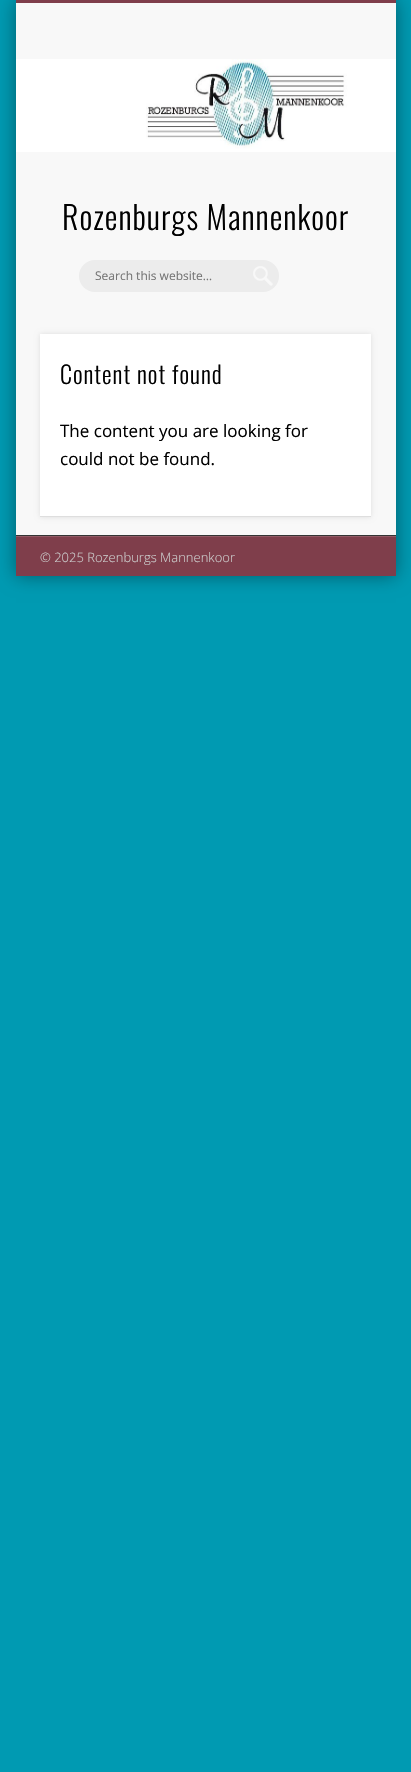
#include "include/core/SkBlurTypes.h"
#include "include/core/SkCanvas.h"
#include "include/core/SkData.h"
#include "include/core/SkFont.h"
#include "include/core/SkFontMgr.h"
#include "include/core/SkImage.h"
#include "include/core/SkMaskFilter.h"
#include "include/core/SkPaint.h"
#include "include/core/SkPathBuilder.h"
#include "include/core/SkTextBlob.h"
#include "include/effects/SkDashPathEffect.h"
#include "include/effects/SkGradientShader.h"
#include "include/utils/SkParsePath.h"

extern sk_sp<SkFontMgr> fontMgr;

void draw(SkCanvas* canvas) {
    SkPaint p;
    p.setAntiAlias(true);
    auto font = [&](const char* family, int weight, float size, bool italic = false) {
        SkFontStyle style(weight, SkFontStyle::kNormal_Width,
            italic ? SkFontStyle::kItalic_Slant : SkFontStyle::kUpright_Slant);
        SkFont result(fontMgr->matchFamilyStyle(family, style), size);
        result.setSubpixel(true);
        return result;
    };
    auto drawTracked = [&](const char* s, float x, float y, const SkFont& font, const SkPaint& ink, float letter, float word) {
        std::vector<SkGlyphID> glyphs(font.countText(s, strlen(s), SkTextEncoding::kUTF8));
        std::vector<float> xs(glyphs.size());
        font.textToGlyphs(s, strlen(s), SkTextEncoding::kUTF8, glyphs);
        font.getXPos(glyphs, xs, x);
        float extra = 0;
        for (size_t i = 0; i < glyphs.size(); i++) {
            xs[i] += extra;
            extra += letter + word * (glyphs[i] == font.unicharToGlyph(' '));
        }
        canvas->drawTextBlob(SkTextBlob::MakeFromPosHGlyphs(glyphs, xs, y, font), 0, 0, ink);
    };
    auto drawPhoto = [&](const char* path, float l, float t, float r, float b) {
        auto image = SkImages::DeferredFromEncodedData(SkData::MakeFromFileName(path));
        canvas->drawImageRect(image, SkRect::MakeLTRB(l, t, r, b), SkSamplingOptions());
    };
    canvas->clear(0xFF009AB2);
    p.setColor(0x66000000);
    p.setMaskFilter(SkMaskFilter::MakeBlur(kNormal_SkBlurStyle, 9));
    canvas->drawRect(SkRect::MakeLTRB(16, 0, 396, 576), p);
    p.setMaskFilter(nullptr);
    p.setColor(0xFFF8F8F8);
    canvas->drawRect(SkRect::MakeLTRB(16, 3, 396, 535), p);
    p.setColor(0xFF7F3E4B);
    canvas->drawRect(SkRect::MakeLTRB(16, 0, 396, 3), p);
    drawPhoto("media/1.png", 16, 59, 396, 152);
    auto font1 = font("Oswald", 300, 32);
    p.setColor(0xFF000000);
    drawTracked("Rozenburgs Mannenkoor", 62, 230, font1, p, 1, 0);
    p.setColor(0xFFECECEC);
    canvas->drawRoundRect(SkRect::MakeLTRB(79, 260, 279, 292), 16, 16, p);
    drawPhoto("media/2.png", 253, 266, 273, 286);
    auto font2 = font("Open Sans", 400, 12);
    p.setColor(0xFF757575);
    canvas->drawString("Search this website…", 95, 280, font2, p);
    p.setColor(0x1A000000);
    p.setMaskFilter(SkMaskFilter::MakeBlur(kNormal_SkBlurStyle, 2.5f));
    canvas->drawRect(SkRect::MakeLTRB(40, 334, 371, 517), p);
    p.setMaskFilter(nullptr);
    p.setColor(0xFFFFFFFF);
    canvas->drawRect(SkRect::MakeLTRB(40, 334, 371, 516), p);
    p.setColor(0xFFDEDEDE);
    canvas->drawRect(SkRect::MakeLTRB(40, 516, 371, 517), p);
    auto font3 = font("Oswald", 300, 24);
    p.setColor(0xFF000000);
    drawTracked("Content not found", 60, 384, font3, p, 1, 0);
    auto font4 = font("Open Sans", 400, 17);
    canvas->drawString("The content you are looking for", 60, 437, font4, p);
    canvas->drawString("could not be found.", 60, 465, font4, p);
    {
        const struct { float l, t, r, b; SkColor color; } items[] = {
            {16, 535, 396, 536, 0xFF343434},
            {16, 537, 396, 576, 0xFF7F3E4B},
            {16, 536, 396, 537, 0xFF925A65},
        };
        for (auto [l, t, r, b, color] : items) {
            p.setColor(color);
            canvas->drawRect(SkRect::MakeLTRB(l, t, r, b), p);
        }
    }
    auto font5 = font("Open Sans", 300, 13);
    p.setColor(0xFFCCCCCC);
    canvas->drawString("© 2025 Rozenburgs Mannenkoor", 40, 562, font5, p);
}
